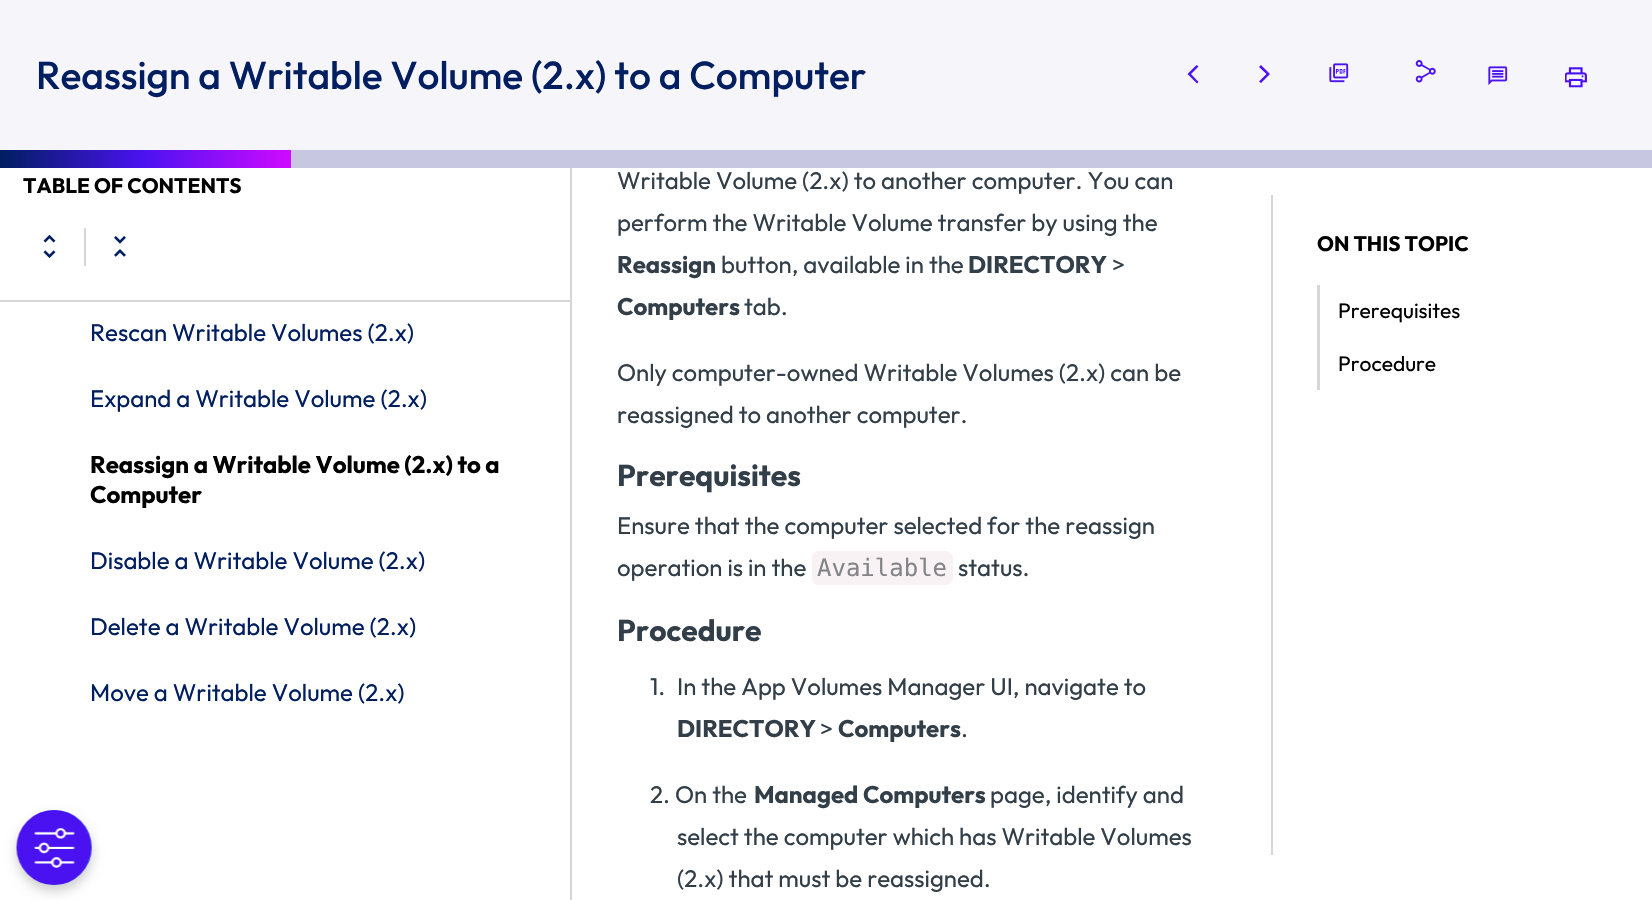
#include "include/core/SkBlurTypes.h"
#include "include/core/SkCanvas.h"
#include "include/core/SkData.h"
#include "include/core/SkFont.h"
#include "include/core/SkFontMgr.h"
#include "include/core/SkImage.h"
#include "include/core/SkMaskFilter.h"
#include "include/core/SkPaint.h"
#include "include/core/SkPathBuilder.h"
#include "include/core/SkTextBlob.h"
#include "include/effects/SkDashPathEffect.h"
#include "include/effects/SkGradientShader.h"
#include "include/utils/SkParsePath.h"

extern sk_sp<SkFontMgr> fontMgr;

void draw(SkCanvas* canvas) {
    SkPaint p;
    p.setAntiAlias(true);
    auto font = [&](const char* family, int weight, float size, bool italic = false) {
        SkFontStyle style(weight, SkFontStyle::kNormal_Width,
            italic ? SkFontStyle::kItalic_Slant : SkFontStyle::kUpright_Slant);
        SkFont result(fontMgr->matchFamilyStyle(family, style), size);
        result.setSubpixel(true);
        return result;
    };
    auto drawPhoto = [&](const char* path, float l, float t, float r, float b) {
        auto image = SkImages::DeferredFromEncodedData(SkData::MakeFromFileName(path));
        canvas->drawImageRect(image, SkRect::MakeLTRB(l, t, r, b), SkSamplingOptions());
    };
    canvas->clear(0xFFFFFFFF);
    p.setColor(0xFFF6F5FA);
    canvas->drawRect(SkRect::MakeLTRB(0, 0, 1652, 150), p);
    auto font1 = font("Outfit", 500, 39);
    p.setColor(0xFF001E60);
    canvas->drawString("Reassign a Writable Volume (2.x) to a Computer", 36, 89, font1, p);
    p.setColor(0xFF4A12F0);
    canvas->drawPath(SkPathBuilder().moveTo(1198.5f, 66.5f).lineTo(1196.5f, 65).lineTo(1187.5f, 74).lineTo(1197, 83.5f).lineTo(1198.5f, 82).lineTo(1191, 74).close().detach(), p);
    canvas->drawPath(SkPathBuilder().moveTo(1259, 81.5f).lineTo(1261, 83).lineTo(1270, 74).lineTo(1261, 65).lineTo(1259, 67).lineTo(1266.5f, 74).close().detach(), p);
    drawPhoto("media/1.png", 1329, 63, 1349, 83);
    drawPhoto("media/2.png", 1415, 60, 1436, 83);
    drawPhoto("media/3.png", 1488, 66, 1508, 85);
    drawPhoto("media/4.png", 1565, 67, 1587, 88);
    {
        const SkColor colors[] = {0xFF001E60, 0xFF4A12F0, 0xFFD00AFF};
        const float stops[] = {0, 0.49f, 1};
        const SkPoint ends[] = {{0, 159}, {291, 159}};
        p.setShader(SkGradientShader::MakeLinear(ends, colors, stops, 3, SkTileMode::kClamp));
        p.setAlpha(255);
    }
    canvas->drawRect(SkRect::MakeLTRB(0, 150, 291, 168), p);
    p.setShader(nullptr);
    {
        const struct { float l, t, r, b; SkColor color; } items[] = {
            {291, 150, 1652, 168, 0xFFC8C7E2},
            {570, 168, 572, 900, 0xFFD6D6D6},
            {0, 300, 570, 302, 0xFFD6D6D6},
        };
        for (auto [l, t, r, b, color] : items) {
            p.setColor(color);
            canvas->drawRect(SkRect::MakeLTRB(l, t, r, b), p);
        }
    }
    auto font2 = font("Outfit", 700, 21);
    p.setColor(0xFF000000);
    canvas->drawString("TABLE OF CONTENTS", 23, 193, font2, p);
    drawPhoto("media/5.png", 43, 234, 56, 258);
    p.setColor(0xFFD6D6D6);
    canvas->drawRect(SkRect::MakeLTRB(84, 228, 86, 266), p);
    drawPhoto("media/6.png", 114, 236, 126, 257);
    auto font3 = font("Outfit", 100, 24);
    p.setColor(0xFF001E60);
    canvas->drawString("Rescan Writable Volumes (2.x)", 90, 341, font3, p);
    canvas->drawString("Expand a Writable Volume (2.x)", 90, 407, font3, p);
    auto font4 = font("Outfit", 700, 24);
    p.setColor(0xFF000000);
    canvas->drawString("Reassign a Writable Volume (2.x) to a", 90, 473, font4, p);
    canvas->drawString("Computer", 90, 503, font4, p);
    p.setColor(0xFF001E60);
    {
        const struct { const char* s; float x, y; } items[] = {
            {"Disable a Writable Volume (2.x)", 90, 569},
            {"Delete a Writable Volume (2.x)", 90, 635},
            {"Move a Writable Volume (2.x)", 90, 701},
        };
        for (auto [s, x, y] : items) {
            canvas->drawString(s, x, y, font3, p);
        }
    }
    p.setColor(0xFF323E48);
    canvas->drawString("Writable Volume (2.x) to another computer. You can", 617, 189, font3, p);
    canvas->drawString("perform the Writable Volume transfer by using the", 617, 231, font3, p);
    canvas->drawString("Reassign", 617, 273, font4, p);
    canvas->drawString("button, available in the", 721, 273, font3, p);
    canvas->drawString("DIRECTORY", 968, 273, font4, p);
    canvas->drawString(">", 1112, 273, font3, p);
    canvas->drawString("Computers", 617, 315, font4, p);
    {
        const struct { const char* s; float x, y; } items[] = {
            {"tab.", 744, 315},
            {"Only computer-owned Writable Volumes (2.x) can be", 617, 381},
            {"reassigned to another computer.", 617, 423},
        };
        for (auto [s, x, y] : items) {
            canvas->drawString(s, x, y, font3, p);
        }
    }
    auto font5 = font("Outfit", 700, 30);
    canvas->drawString("Prerequisites", 617, 486, font5, p);
    canvas->drawString("Ensure that the computer selected for the reassign", 617, 534, font3, p);
    canvas->drawString("operation is in the", 617, 576, font3, p);
    p.setColor(0xFFF9F2F4);
    canvas->drawRoundRect(SkRect::MakeLTRB(812, 551, 953, 585), 6, 6, p);
    auto font6 = font("DejaVu Sans Mono", 400, 24);
    p.setColor(0xFF838486);
    canvas->drawString("Available", 817, 576, font6, p);
    p.setColor(0xFF323E48);
    canvas->drawString("status.", 958, 576, font3, p);
    canvas->drawString("Procedure", 617, 641, font5, p);
    canvas->drawString("1.", 650, 695, font3, p);
    canvas->drawString("In the App Volumes Manager UI, navigate to", 677, 695, font3, p);
    canvas->drawString("DIRECTORY", 677, 737, font4, p);
    canvas->drawString(">", 820, 737, font3, p);
    canvas->drawString("Computers", 838, 737, font4, p);
    canvas->drawString(".", 961, 737, font3, p);
    canvas->drawString("2. On the", 650, 803, font3, p);
    canvas->drawString("Managed Computers", 754, 803, font4, p);
    {
        const struct { const char* s; float x, y; } items[] = {
            {"page, identify and", 990, 803},
            {"select the computer which has Writable Volumes", 677, 845},
            {"(2.x) that must be reassigned.", 677, 887},
        };
        for (auto [s, x, y] : items) {
            canvas->drawString(s, x, y, font3, p);
        }
    }
    p.setColor(0xFFD6D6D6);
    canvas->drawRect(SkRect::MakeLTRB(1271, 195, 1273, 855), p);
    p.setColor(0xFF000000);
    canvas->drawString("ON THIS TOPIC", 1317, 251, font2, p);
    p.setColor(0xFFD6D6D6);
    canvas->drawRect(SkRect::MakeLTRB(1317, 285, 1320, 390), p);
    auto font7 = font("Outfit", 100, 21);
    p.setColor(0xFF000000);
    canvas->drawString("Prerequisites", 1338, 318, font7, p);
    canvas->drawString("Procedure", 1338, 371, font7, p);
    p.setColor(0x33000000);
    p.setMaskFilter(SkMaskFilter::MakeBlur(kNormal_SkBlurStyle, 6));
    canvas->drawRoundRect(SkRect::MakeLTRB(17, 816, 92, 891), 37.5f, 37.5f, p);
    p.setMaskFilter(nullptr);
    p.setColor(0xFF6AAAE4);
    canvas->drawCircle(54.5f, 847.5f, 37.5f, p);
    drawPhoto("media/7.png", 16, 810, 92, 885);
}
